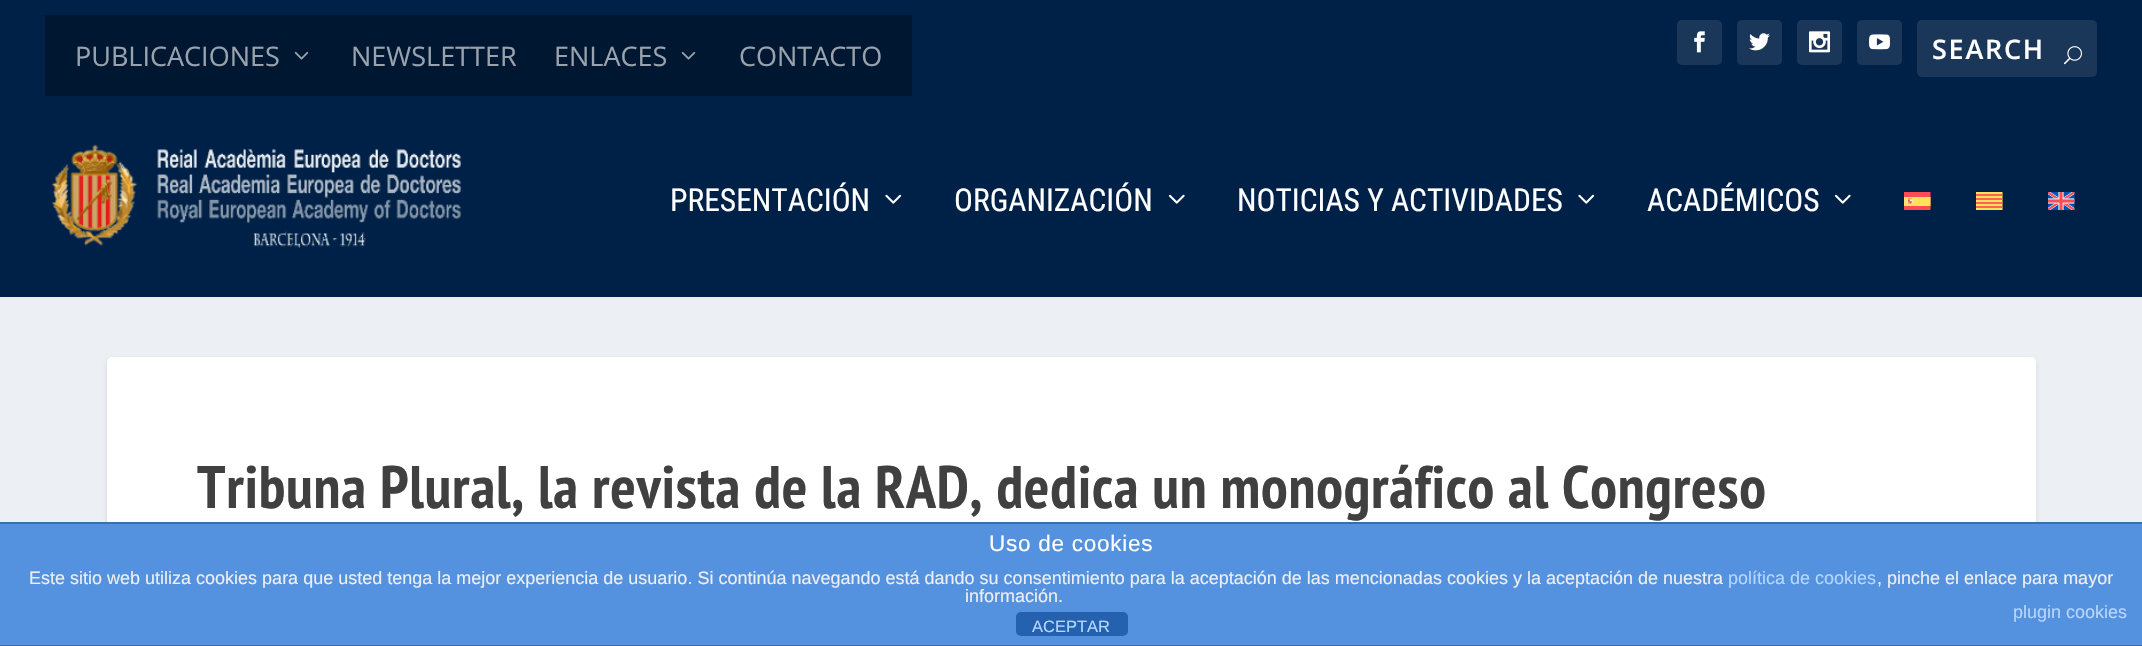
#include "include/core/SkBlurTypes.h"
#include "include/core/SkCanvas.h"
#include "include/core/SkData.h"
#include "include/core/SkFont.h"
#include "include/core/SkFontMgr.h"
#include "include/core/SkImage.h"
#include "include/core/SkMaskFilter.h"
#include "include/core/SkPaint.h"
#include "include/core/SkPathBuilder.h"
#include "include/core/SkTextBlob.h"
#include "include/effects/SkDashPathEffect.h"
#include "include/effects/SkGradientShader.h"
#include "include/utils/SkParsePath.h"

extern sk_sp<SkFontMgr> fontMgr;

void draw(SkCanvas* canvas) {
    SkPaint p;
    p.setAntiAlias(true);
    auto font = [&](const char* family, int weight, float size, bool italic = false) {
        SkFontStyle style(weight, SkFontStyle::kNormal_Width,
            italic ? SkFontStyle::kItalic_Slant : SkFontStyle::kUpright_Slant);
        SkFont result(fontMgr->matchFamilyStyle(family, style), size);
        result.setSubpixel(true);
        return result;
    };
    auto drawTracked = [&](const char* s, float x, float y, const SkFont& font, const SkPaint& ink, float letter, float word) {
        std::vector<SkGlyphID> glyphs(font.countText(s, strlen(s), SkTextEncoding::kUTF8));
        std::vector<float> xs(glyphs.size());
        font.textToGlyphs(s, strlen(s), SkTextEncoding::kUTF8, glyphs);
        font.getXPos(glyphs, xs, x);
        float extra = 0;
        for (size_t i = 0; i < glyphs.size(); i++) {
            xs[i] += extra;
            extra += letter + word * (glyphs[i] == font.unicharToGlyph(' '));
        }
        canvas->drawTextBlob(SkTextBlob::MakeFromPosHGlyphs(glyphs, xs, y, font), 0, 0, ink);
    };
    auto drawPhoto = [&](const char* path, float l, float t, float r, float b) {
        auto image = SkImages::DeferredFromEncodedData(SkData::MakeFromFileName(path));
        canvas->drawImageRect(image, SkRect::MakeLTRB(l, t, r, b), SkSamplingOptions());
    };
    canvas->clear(0xFFECF0F5);
    p.setColor(0xFF002147);
    canvas->drawRect(SkRect::MakeLTRB(0, 0, 2142, 297), p);
    p.setColor(0xFF001732);
    canvas->drawRect(SkRect::MakeLTRB(45, 15, 912, 96), p);
    auto font1 = font("Open Sans", 400, 27);
    p.setColor(0xFF99A2AD);
    canvas->drawString("PUBLICACIONES", 75, 66, font1, p);
    drawPhoto("media/1.png", 294, 51, 309, 60);
    canvas->drawString("NEWSLETTER", 351, 66, font1, p);
    canvas->drawString("ENLACES", 554, 66, font1, p);
    drawPhoto("media/1.png", 681, 51, 696, 60);
    canvas->drawString("CONTACTO", 739, 66, font1, p);
    p.setColor(0xFF1A3759);
    canvas->drawRoundRect(SkRect::MakeLTRB(1677, 20, 1722, 65), 5, 5, p);
    drawPhoto("media/2.png", 1694, 31, 1705, 53);
    canvas->drawRoundRect(SkRect::MakeLTRB(1737, 20, 1782, 65), 5, 5, p);
    drawPhoto("media/3.png", 1749, 33, 1770, 51);
    canvas->drawRoundRect(SkRect::MakeLTRB(1797, 20, 1842, 65), 5, 5, p);
    drawPhoto("media/4.png", 1809, 31, 1830, 53);
    canvas->drawRoundRect(SkRect::MakeLTRB(1857, 20, 1902, 65), 5, 5, p);
    drawPhoto("media/5.png", 1869, 34, 1890, 50);
    canvas->drawRoundRect(SkRect::MakeLTRB(1917, 20, 2097, 77), 5, 5, p);
    auto font2 = font("Open Sans", 600, 27);
    p.setColor(0xFFFFFFFF);
    drawTracked("SEARCH", 1932, 59, font2, p, 1.75f, 0);
    drawPhoto("media/6.png", 2064, 46, 2082, 65);
    drawPhoto("media/7.png", 51, 144, 462, 248);
    auto font3 = font("Roboto Condensed", 400, 31.5f);
    canvas->drawString("PRESENTACIÓN", 670, 211, font3, p);
    drawPhoto("media/8.png", 885, 194, 902, 204);
    canvas->drawString("ORGANIZACIÓN", 954, 211, font3, p);
    drawPhoto("media/9.png", 1168, 194, 1185, 204);
    canvas->drawString("NOTICIAS Y ACTIVIDADES", 1237, 211, font3, p);
    drawPhoto("media/8.png", 1578, 194, 1595, 204);
    canvas->drawString("ACADÉMICOS", 1647, 211, font3, p);
    drawPhoto("media/9.png", 1834, 194, 1851, 204);
    drawPhoto("media/10.png", 1904, 192, 1931, 210);
    drawPhoto("media/11.png", 1976, 192, 2003, 210);
    drawPhoto("media/12.png", 2048, 192, 2075, 210);
    p.setColor(0x1A000000);
    p.setMaskFilter(SkMaskFilter::MakeBlur(kNormal_SkBlurStyle, 2));
    canvas->drawRoundRect(SkRect::MakeLTRB(107, 359, 2036, 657), 5, 5, p);
    p.setMaskFilter(nullptr);
    p.setColor(0xFFFFFFFF);
    canvas->drawRoundRect(SkRect::MakeLTRB(107, 357, 2036, 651), 5, 5, p);
    auto font4 = font("PT Sans Narrow", 700, 60);
    p.setColor(0xFF404040);
    drawTracked("Tribuna Plural, la revista de la RAD, dedica un monográfico al Congreso", 197, 508, font4, p, 0.75f, 0);
    {
        const struct { float l, t, r, b; SkColor color; } items[] = {
            {0, 524, 2142, 645, 0xFF5492E0},
            {0, 522, 2142, 524, 0xFF3F6DA7},
            {0, 645, 2142, 646, 0xFF3F6DA7},
        };
        for (auto [l, t, r, b, color] : items) {
            p.setColor(color);
            canvas->drawRect(SkRect::MakeLTRB(l, t, r, b), p);
        }
    }
    auto font5 = font("Liberation Sans", 400, 22.5f);
    p.setColor(0xFFFFFFFF);
    drawTracked("Uso de cookies", 989, 551, font5, p, 0.75f, 0);
    auto font6 = font("Liberation Sans", 400, 18);
    p.setColor(0xFFEEEEEE);
    canvas->drawString("Este sitio web utiliza cookies para que usted tenga la mejor experiencia de usuario. Si continúa navegando está dando su consentimiento para la aceptación de las mencionadas cookies y la aceptación de nuestra", 29, 584, font6, p);
    p.setColor(0xFFB7D7FF);
    canvas->drawString("política de cookies", 1728, 584, font6, p);
    p.setColor(0xFFEEEEEE);
    canvas->drawString(", pinche el enlace para mayor", 1877, 584, font6, p);
    canvas->drawString("información.", 965, 602, font6, p);
    p.setColor(0xFFB7D7FF);
    canvas->drawString("plugin cookies", 2013, 618, font6, p);
    p.setColor(0xFF2462B0);
    canvas->drawRoundRect(SkRect::MakeLTRB(1016, 612, 1128, 636), 5, 5, p);
    auto font7 = font("Liberation Sans", 400, 16.5f);
    p.setColor(0xFFB7D7FF);
    canvas->drawString("ACEPTAR", 1032, 632, font7, p);
}
